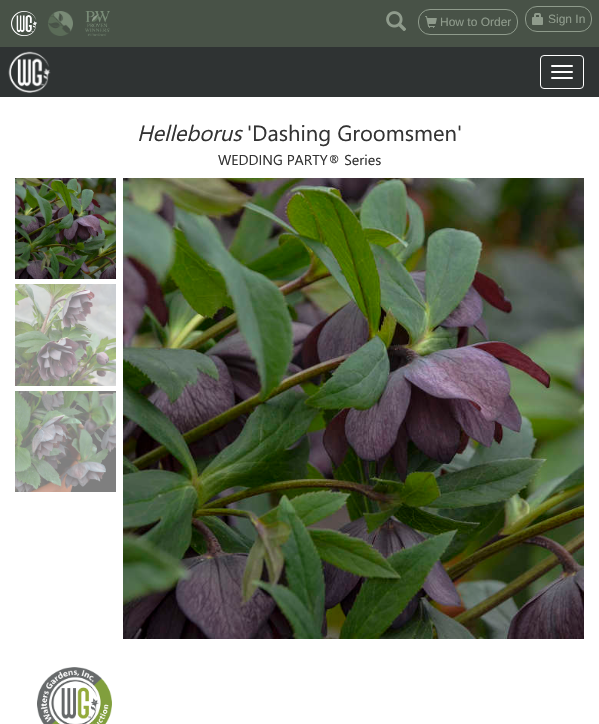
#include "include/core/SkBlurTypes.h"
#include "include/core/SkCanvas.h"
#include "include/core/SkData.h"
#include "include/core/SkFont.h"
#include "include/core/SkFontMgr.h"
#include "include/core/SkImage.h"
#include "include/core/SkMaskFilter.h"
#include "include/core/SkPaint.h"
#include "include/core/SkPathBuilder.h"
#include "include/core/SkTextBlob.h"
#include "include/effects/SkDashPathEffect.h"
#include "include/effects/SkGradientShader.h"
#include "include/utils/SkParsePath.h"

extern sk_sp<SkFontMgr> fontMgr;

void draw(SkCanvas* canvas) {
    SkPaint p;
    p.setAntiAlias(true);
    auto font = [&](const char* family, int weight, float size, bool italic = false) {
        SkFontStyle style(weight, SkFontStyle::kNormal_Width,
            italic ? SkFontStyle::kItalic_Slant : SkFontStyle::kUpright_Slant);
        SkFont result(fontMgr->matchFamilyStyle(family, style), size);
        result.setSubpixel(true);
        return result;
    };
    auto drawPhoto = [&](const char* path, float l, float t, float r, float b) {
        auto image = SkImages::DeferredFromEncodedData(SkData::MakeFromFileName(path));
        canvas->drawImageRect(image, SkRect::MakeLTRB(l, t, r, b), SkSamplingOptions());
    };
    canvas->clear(0xFFFFFFFF);
    p.setColor(0xFF485247);
    canvas->drawRect(SkRect::MakeLTRB(0, 0, 599, 47), p);
    drawPhoto("media/1.png", 11, 11, 37, 36);
    drawPhoto("media/2.png", 48, 11, 73, 36);
    drawPhoto("media/3.png", 85, 11, 110, 36);
    drawPhoto("media/4.png", 386, 11, 406, 31);
    p.setStyle(SkPaint::kStroke_Style);
    p.setStrokeWidth(1);
    p.setColor(0xFF8F9B8C);
    canvas->drawRoundRect(SkRect::MakeLTRB(418.5f, 9.5f, 517.5f, 34.5f), 11.5f, 11.5f, p);
    drawPhoto("media/5.png", 425, 16, 437, 28);
    auto font1 = font("Liberation Sans", 400, 12);
    p.setStyle(SkPaint::kFill_Style);
    canvas->drawString("How to Order", 440, 26, font1, p);
    p.setStyle(SkPaint::kStroke_Style);
    canvas->drawRoundRect(SkRect::MakeLTRB(525.5f, 6.5f, 591.5f, 31.5f), 11.5f, 11.5f, p);
    drawPhoto("media/6.png", 532, 13, 543, 25);
    p.setStyle(SkPaint::kFill_Style);
    canvas->drawString("Sign In", 548, 23, font1, p);
    p.setColor(0xFF2F3333);
    canvas->drawRect(SkRect::MakeLTRB(0, 47, 599, 97), p);
    p.setStyle(SkPaint::kStroke_Style);
    p.setColor(0xFFFFFFFF);
    canvas->drawRoundRect(SkRect::MakeLTRB(540.5f, 55.5f, 583.5f, 88.5f), 3.5f, 3.5f, p);
    p.setStyle(SkPaint::kFill_Style);
    canvas->drawRoundRect(SkRect::MakeLTRB(551, 65, 573, 67), 1, 1, p);
    canvas->drawRoundRect(SkRect::MakeLTRB(551, 71, 573, 73), 1, 1, p);
    canvas->drawRoundRect(SkRect::MakeLTRB(551, 77, 573, 79), 1, 1, p);
    drawPhoto("media/7.png", 8, 51, 51, 93);
    auto font2 = font("Segoe UI", 400, 22, true);
    p.setColor(0xFF333333);
    canvas->drawString("Helleborus", 137, 141, font2, p);
    auto font3 = font("Segoe UI", 400, 22);
    canvas->drawString("'Dashing Groomsmen'", 247, 141, font3, p);
    auto font4 = font("Segoe UI", 400, 14.25f);
    canvas->drawString("WEDDING PARTY® Series", 218, 165, font4, p);
    drawPhoto("media/8.png", 15, 178, 116, 279);
    drawPhoto("media/9.png", 15, 284, 116, 386);
    drawPhoto("media/10.png", 15, 391, 116, 492);
    drawPhoto("media/11.png", 123, 178, 584, 639);
    drawPhoto("media/12.png", 37, 667, 112, 724);
}
